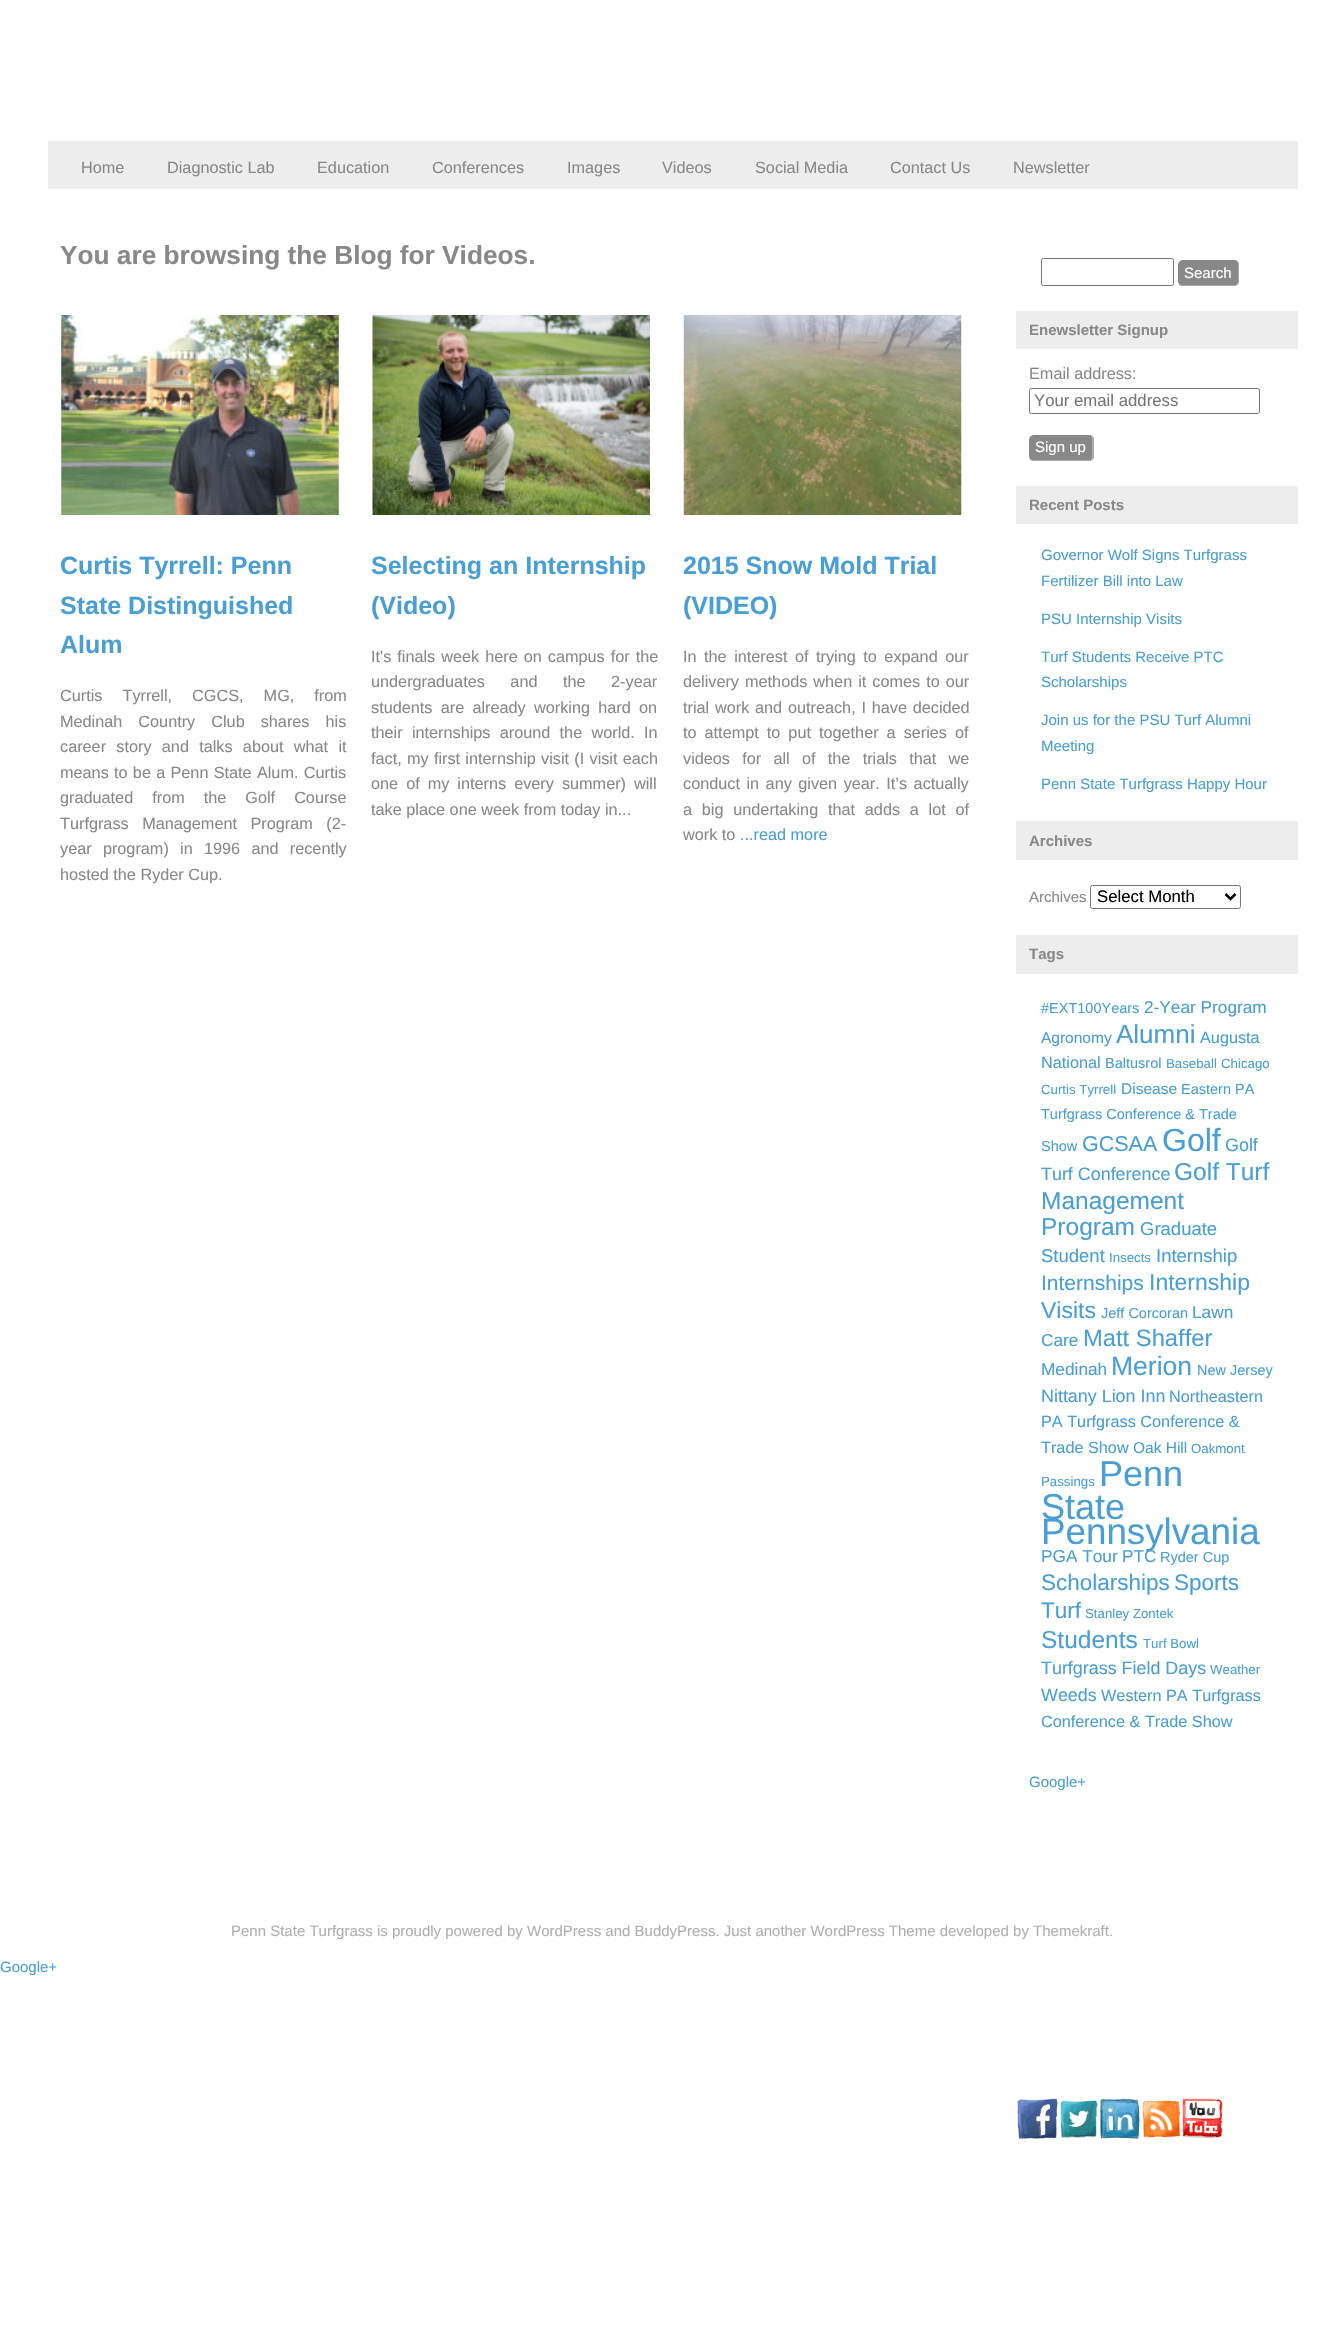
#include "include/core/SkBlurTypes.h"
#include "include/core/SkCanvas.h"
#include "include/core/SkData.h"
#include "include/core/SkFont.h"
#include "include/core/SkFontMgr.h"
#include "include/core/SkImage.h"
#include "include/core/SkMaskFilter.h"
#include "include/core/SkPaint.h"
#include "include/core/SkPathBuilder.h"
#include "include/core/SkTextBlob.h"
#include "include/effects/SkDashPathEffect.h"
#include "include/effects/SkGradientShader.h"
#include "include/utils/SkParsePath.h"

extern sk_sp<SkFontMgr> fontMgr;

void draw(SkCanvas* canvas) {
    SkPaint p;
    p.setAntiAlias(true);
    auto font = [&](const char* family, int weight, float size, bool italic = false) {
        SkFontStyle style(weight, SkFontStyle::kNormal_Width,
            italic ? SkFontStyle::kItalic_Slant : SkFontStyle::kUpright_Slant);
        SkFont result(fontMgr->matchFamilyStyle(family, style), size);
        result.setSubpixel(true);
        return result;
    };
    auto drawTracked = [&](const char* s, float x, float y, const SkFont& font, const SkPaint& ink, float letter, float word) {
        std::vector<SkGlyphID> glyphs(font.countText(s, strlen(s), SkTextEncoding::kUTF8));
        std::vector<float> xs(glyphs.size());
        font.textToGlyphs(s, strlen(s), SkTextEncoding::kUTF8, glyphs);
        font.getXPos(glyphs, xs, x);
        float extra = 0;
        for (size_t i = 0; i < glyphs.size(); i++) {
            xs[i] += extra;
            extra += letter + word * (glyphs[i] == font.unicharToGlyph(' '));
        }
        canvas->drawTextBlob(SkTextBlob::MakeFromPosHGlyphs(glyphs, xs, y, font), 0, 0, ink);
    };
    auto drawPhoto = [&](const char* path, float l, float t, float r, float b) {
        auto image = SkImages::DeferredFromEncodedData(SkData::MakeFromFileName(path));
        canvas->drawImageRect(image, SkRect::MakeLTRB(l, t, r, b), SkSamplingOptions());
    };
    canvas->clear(0xFFFFFFFF);
    p.setColor(0xFFEDEDED);
    canvas->drawRect(SkRect::MakeLTRB(48, 141, 1298, 189), p);
    auto font1 = font("Liberation Sans", 400, 16.25f);
    p.setColor(0xFF888888);
    {
        const struct { const char* s; float x, y; } items[] = {
            {"Home", 81, 173},
            {"Diagnostic Lab", 167, 173},
            {"Education", 317, 173},
            {"Conferences", 432, 173},
            {"Images", 567, 173},
            {"Videos", 662, 173},
            {"Social Media", 755, 173},
            {"Contact Us", 890, 173},
            {"Newsletter", 1013, 173},
        };
        for (auto [s, x, y] : items) {
            canvas->drawString(s, x, y, font1, p);
        }
    }
    auto font2 = font("Liberation Sans", 700, 26.25f);
    canvas->drawString("You are browsing the Blog for Videos.", 60, 264, font2, p);
    drawPhoto("media/1.png", 61, 315, 339, 515);
    auto font3 = font("Liberation Sans", 700, 25);
    p.setColor(0xFF489ED5);
    {
        const struct { const char* s; float x, y; } items[] = {
            {"Curtis Tyrrell: Penn", 60, 574},
            {"State Distinguished", 60, 614},
            {"Alum", 60, 653},
        };
        for (auto [s, x, y] : items) {
            canvas->drawString(s, x, y, font3, p);
        }
    }
    p.setColor(0xFF888888);
    drawTracked("Curtis Tyrrell, CGCS, MG, from", 60, 701, font1, p, 0, 15.5f);
    drawTracked("Medinah Country Club shares his", 60, 727, font1, p, 0, 11.5f);
    drawTracked("career story and talks about what it", 60, 752, font1, p, 0, 5.75f);
    drawTracked("means to be a Penn State Alum. Curtis", 60, 778, font1, p, 0, 0.75f);
    drawTracked("graduated from the Golf Course", 60, 803, font1, p, 0, 14.5f);
    drawTracked("Turfgrass Management Program (2-", 60, 829, font1, p, 0, 9);
    drawTracked("year program) in 1996 and recently", 60, 854, font1, p, 0, 6.75f);
    canvas->drawString("hosted the Ryder Cup.", 60, 880, font1, p);
    drawPhoto("media/2.png", 372, 315, 650, 515);
    p.setColor(0xFF489ED5);
    canvas->drawString("Selecting an Internship", 371, 574, font3, p);
    canvas->drawString("(Video)", 371, 614, font3, p);
    p.setColor(0xFF888888);
    drawTracked("It's finals week here on campus for the", 371, 662, font1, p, 0, 1.5f);
    drawTracked("undergraduates and the 2-year", 371, 687, font1, p, 0, 21);
    drawTracked("students are already working hard on", 371, 713, font1, p, 0, 3.75f);
    drawTracked("their internships around the world. In", 371, 738, font1, p, 0, 4.75f);
    drawTracked("fact, my first internship visit (I visit each", 371, 764, font1, p, 0, 0.75f);
    drawTracked("one of my interns every summer) will", 371, 789, font1, p, 0, 3.5f);
    canvas->drawString("take place one week from today in...", 371, 815, font1, p);
    drawPhoto("media/3.png", 683, 315, 962, 515);
    p.setColor(0xFF489ED5);
    canvas->drawString("2015 Snow Mold Trial", 683, 574, font3, p);
    canvas->drawString("(VIDEO)", 683, 614, font3, p);
    p.setColor(0xFF888888);
    drawTracked("In the interest of trying to expand our", 683, 662, font1, p, 0, 3);
    drawTracked("delivery methods when it comes to our", 683, 687, font1, p, 0, 1.5f);
    drawTracked("trial work and outreach, I have decided", 683, 713, font1, p, 0, 1.25f);
    drawTracked("to attempt to put together a series of", 683, 738, font1, p, 0, 3.5f);
    drawTracked("videos for all of the trials that we", 683, 764, font1, p, 0, 7.75f);
    drawTracked("conduct in any given year. It’s actually", 683, 789, font1, p, 0, 2);
    drawTracked("a big undertaking that adds a lot of", 683, 815, font1, p, 0, 5.25f);
    canvas->drawString("work to", 683, 840, font1, p);
    p.setColor(0xFF489ED5);
    canvas->drawString("...read more", 740, 840, font1, p);
    p.setStyle(SkPaint::kStroke_Style);
    p.setStrokeWidth(1);
    p.setColor(0xFF767676);
    canvas->drawRoundRect(SkRect::MakeLTRB(1041.5f, 258.5f, 1173.5f, 285.5f), 2, 2, p);
    p.setStyle(SkPaint::kFill_Style);
    p.setColor(0xFF888888);
    canvas->drawRoundRect(SkRect::MakeLTRB(1178, 260, 1239, 286), 5, 5, p);
    p.setColor(0xFFAAAAAA);
    canvas->drawPath(SkPathBuilder(SkPathFillType::kEvenOdd).moveTo(1182, 260).lineTo(1234, 260).cubicTo(1237, 260, 1239, 262, 1239, 265).lineTo(1239, 281).cubicTo(1239, 284, 1237, 286, 1234, 286).lineTo(1182, 286).cubicTo(1180, 286, 1178, 284, 1178, 281).lineTo(1178, 265).cubicTo(1178, 262, 1180, 260, 1182, 260).close().moveTo(1182, 260).lineTo(1234, 260).cubicTo(1236, 260, 1238, 262, 1238, 265).lineTo(1238, 281).cubicTo(1238, 283, 1236, 285, 1234, 285).lineTo(1182, 285).cubicTo(1180, 285, 1178, 283, 1178, 281).lineTo(1178, 265).cubicTo(1178, 262, 1180, 260, 1182, 260).close().detach(), p);
    auto font4 = font("Liberation Sans", 400, 15);
    p.setColor(0xFFFFFFFF);
    canvas->drawString("Search", 1184, 278, font4, p);
    p.setColor(0xFFEDEDED);
    canvas->drawRect(SkRect::MakeLTRB(1016, 311, 1298, 349), p);
    auto font5 = font("Liberation Sans", 700, 15);
    p.setColor(0xFF888888);
    canvas->drawString("Enewsletter Signup", 1029, 335, font5, p);
    canvas->drawString("Email address:", 1029, 379, font1, p);
    p.setStyle(SkPaint::kStroke_Style);
    p.setColor(0xFF767676);
    canvas->drawRoundRect(SkRect::MakeLTRB(1029.5f, 388.5f, 1259.5f, 413.5f), 2, 2, p);
    auto font6 = font("Liberation Sans", 400, 16.75f);
    p.setStyle(SkPaint::kFill_Style);
    p.setColor(0xFF757575);
    canvas->drawString("Your email address", 1034, 406, font6, p);
    p.setColor(0xFF888888);
    canvas->drawRoundRect(SkRect::MakeLTRB(1029, 435, 1094, 461), 5, 5, p);
    p.setColor(0xFFAAAAAA);
    canvas->drawPath(SkPathBuilder(SkPathFillType::kEvenOdd).moveTo(1034, 435).lineTo(1089, 435).cubicTo(1092, 435, 1094, 437, 1094, 440).lineTo(1094, 456).cubicTo(1094, 459, 1092, 461, 1089, 461).lineTo(1034, 461).cubicTo(1031, 461, 1029, 459, 1029, 456).lineTo(1029, 440).cubicTo(1029, 437, 1031, 435, 1034, 435).close().moveTo(1034, 435).lineTo(1089, 435).cubicTo(1091, 435, 1092, 437, 1092, 440).lineTo(1092, 456).cubicTo(1092, 458, 1091, 460, 1089, 460).lineTo(1034, 460).cubicTo(1031, 460, 1029, 458, 1029, 456).lineTo(1029, 440).cubicTo(1029, 437, 1031, 435, 1034, 435).close().detach(), p);
    p.setColor(0xFFFFFFFF);
    canvas->drawString("Sign up", 1035, 452, font4, p);
    p.setColor(0xFFEDEDED);
    canvas->drawRect(SkRect::MakeLTRB(1016, 486, 1298, 524), p);
    p.setColor(0xFF888888);
    canvas->drawString("Recent Posts", 1029, 510, font5, p);
    p.setColor(0xFF489ED5);
    {
        const struct { const char* s; float x, y; } items[] = {
            {"Governor Wolf Signs Turfgrass", 1041, 560},
            {"Fertilizer Bill into Law", 1041, 586},
            {"PSU Internship Visits", 1041, 624},
            {"Turf Students Receive PTC", 1041, 662},
            {"Scholarships", 1041, 687},
            {"Join us for the PSU Turf Alumni", 1041, 725},
            {"Meeting", 1041, 751},
            {"Penn State Turfgrass Happy Hour", 1041, 789},
        };
        for (auto [s, x, y] : items) {
            canvas->drawString(s, x, y, font4, p);
        }
    }
    p.setColor(0xFFEDEDED);
    canvas->drawRect(SkRect::MakeLTRB(1016, 821, 1298, 860), p);
    p.setColor(0xFF888888);
    canvas->drawString("Archives", 1029, 846, font5, p);
    canvas->drawString("Archives", 1029, 902, font4, p);
    p.setStyle(SkPaint::kStroke_Style);
    p.setColor(0xFF767676);
    canvas->drawRoundRect(SkRect::MakeLTRB(1090.5f, 885.5f, 1240.5f, 908.5f), 2, 2, p);
    p.setStrokeWidth(2.5f);
    p.setColor(0xFF000000);
    canvas->drawPath(SkPathBuilder().moveTo(1225.5f, 894).lineTo(1230.5f, 899).lineTo(1235.5f, 894).detach(), p);
    p.setStyle(SkPaint::kFill_Style);
    canvas->drawString("Select Month", 1097, 902, font6, p);
    p.setColor(0xFFEDEDED);
    canvas->drawRect(SkRect::MakeLTRB(1016, 935, 1298, 974), p);
    p.setColor(0xFF888888);
    canvas->drawString("Tags", 1029, 959, font5, p);
    auto font7 = font("Liberation Sans", 400, 14.5f);
    p.setColor(0xFF489ED5);
    canvas->drawString("#EXT100Years", 1041, 1013, font7, p);
    auto font8 = font("Liberation Sans", 400, 17.25f);
    canvas->drawString("2-Year Program", 1144, 1013, font8, p);
    auto font9 = font("Liberation Sans", 400, 15.5f);
    canvas->drawString("Agronomy", 1041, 1043, font9, p);
    auto font10 = font("Liberation Sans", 400, 26);
    canvas->drawString("Alumni", 1116, 1043, font10, p);
    canvas->drawString("Augusta", 1200, 1043, font1, p);
    canvas->drawString("National", 1041, 1068, font1, p);
    canvas->drawString("Baltusrol", 1105, 1068, font7, p);
    auto font11 = font("Liberation Sans", 400, 13.25f);
    {
        const struct { const char* s; float x, y; } items[] = {
            {"Baseball", 1166, 1068},
            {"Chicago", 1221, 1068},
            {"Curtis Tyrrell", 1041, 1094},
        };
        for (auto [s, x, y] : items) {
            canvas->drawString(s, x, y, font11, p);
        }
    }
    canvas->drawString("Disease", 1121, 1094, font9, p);
    {
        const struct { const char* s; float x, y; } items[] = {
            {"Eastern PA", 1181, 1094},
            {"Turfgrass Conference & Trade", 1041, 1119},
            {"Show", 1041, 1151},
        };
        for (auto [s, x, y] : items) {
            canvas->drawString(s, x, y, font7, p);
        }
    }
    auto font12 = font("Liberation Sans", 400, 21.5f);
    canvas->drawString("GCSAA", 1082, 1151, font12, p);
    auto font13 = font("Liberation Sans", 400, 32);
    canvas->drawString("Golf", 1162, 1151, font13, p);
    auto font14 = font("Liberation Sans", 400, 17.9f);
    canvas->drawString("Golf", 1225, 1151, font14, p);
    canvas->drawString("Turf Conference", 1041, 1180, font14, p);
    auto font15 = font("Liberation Sans", 400, 24.5f);
    {
        const struct { const char* s; float x, y; } items[] = {
            {"Golf Turf", 1174, 1180},
            {"Management", 1041, 1209},
            {"Program", 1041, 1235},
        };
        for (auto [s, x, y] : items) {
            canvas->drawString(s, x, y, font15, p);
        }
    }
    auto font16 = font("Liberation Sans", 400, 18.5f);
    canvas->drawString("Graduate", 1140, 1235, font16, p);
    canvas->drawString("Student", 1041, 1262, font16, p);
    canvas->drawString("Insects", 1109, 1262, font11, p);
    canvas->drawString("Internship", 1156, 1262, font16, p);
    auto font17 = font("Liberation Sans", 400, 21);
    canvas->drawString("Internships", 1041, 1290, font17, p);
    auto font18 = font("Liberation Sans", 400, 23);
    canvas->drawString("Internship", 1149, 1290, font18, p);
    canvas->drawString("Visits", 1041, 1318, font18, p);
    canvas->drawString("Jeff Corcoran", 1101, 1318, font7, p);
    canvas->drawString("Lawn", 1192, 1318, font8, p);
    canvas->drawString("Care", 1041, 1346, font8, p);
    auto font19 = font("Liberation Sans", 400, 23.75f);
    canvas->drawString("Matt Shaffer", 1083, 1346, font19, p);
    canvas->drawString("Medinah", 1041, 1375, font8, p);
    auto font20 = font("Liberation Sans", 400, 26.5f);
    canvas->drawString("Merion", 1111, 1375, font20, p);
    canvas->drawString("New Jersey", 1197, 1375, font7, p);
    canvas->drawString("Nittany Lion Inn", 1041, 1402, font14, p);
    {
        const struct { const char* s; float x, y; } items[] = {
            {"Northeastern", 1169, 1402},
            {"PA Turfgrass Conference &", 1041, 1427},
            {"Trade Show", 1041, 1453},
        };
        for (auto [s, x, y] : items) {
            canvas->drawString(s, x, y, font1, p);
        }
    }
    canvas->drawString("Oak Hill", 1133, 1453, font9, p);
    canvas->drawString("Oakmont", 1191, 1453, font11, p);
    canvas->drawString("Passings", 1041, 1486, font11, p);
    auto font21 = font("Liberation Sans", 400, 36);
    canvas->drawString("Penn", 1099, 1486, font21, p);
    canvas->drawString("State", 1041, 1519, font21, p);
    auto font22 = font("Liberation Sans", 400, 36.75f);
    canvas->drawString("Pennsylvania", 1041, 1544, font22, p);
    canvas->drawString("PGA Tour", 1041, 1562, font8, p);
    canvas->drawString("PTC", 1122, 1562, font8, p);
    canvas->drawString("Ryder Cup", 1160, 1562, font7, p);
    auto font23 = font("Liberation Sans", 400, 22.5f);
    {
        const struct { const char* s; float x, y; } items[] = {
            {"Scholarships", 1041, 1590},
            {"Sports", 1174, 1590},
            {"Turf", 1041, 1618},
        };
        for (auto [s, x, y] : items) {
            canvas->drawString(s, x, y, font23, p);
        }
    }
    canvas->drawString("Stanley Zontek", 1085, 1618, font11, p);
    canvas->drawString("Students", 1041, 1648, font15, p);
    canvas->drawString("Turf Bowl", 1143, 1648, font11, p);
    canvas->drawString("Turfgrass Field Days", 1041, 1674, font14, p);
    canvas->drawString("Weather", 1210, 1674, font11, p);
    canvas->drawString("Weeds", 1041, 1701, font14, p);
    canvas->drawString("Western PA Turfgrass", 1101, 1701, font1, p);
    canvas->drawString("Conference & Trade Show", 1041, 1727, font1, p);
    canvas->drawString("Google+", 1029, 1787, font4, p);
    p.setColor(0xFFAFAFAF);
    canvas->drawString("Penn State Turfgrass is proudly powered by WordPress and BuddyPress. Just another WordPress Theme developed by Themekraft.", 231, 1936, font4, p);
    p.setColor(0xFF489ED5);
    canvas->drawString("Google+", 0, 1972, font4, p);
    drawPhoto("media/4.png", 1017, 2098, 1058, 2139);
    drawPhoto("media/5.png", 1060, 2100, 1098, 2138);
    drawPhoto("media/6.png", 1100, 2098, 1140, 2139);
    drawPhoto("media/7.png", 1142, 2100, 1180, 2138);
    drawPhoto("media/8.png", 1182, 2098, 1223, 2139);
}
